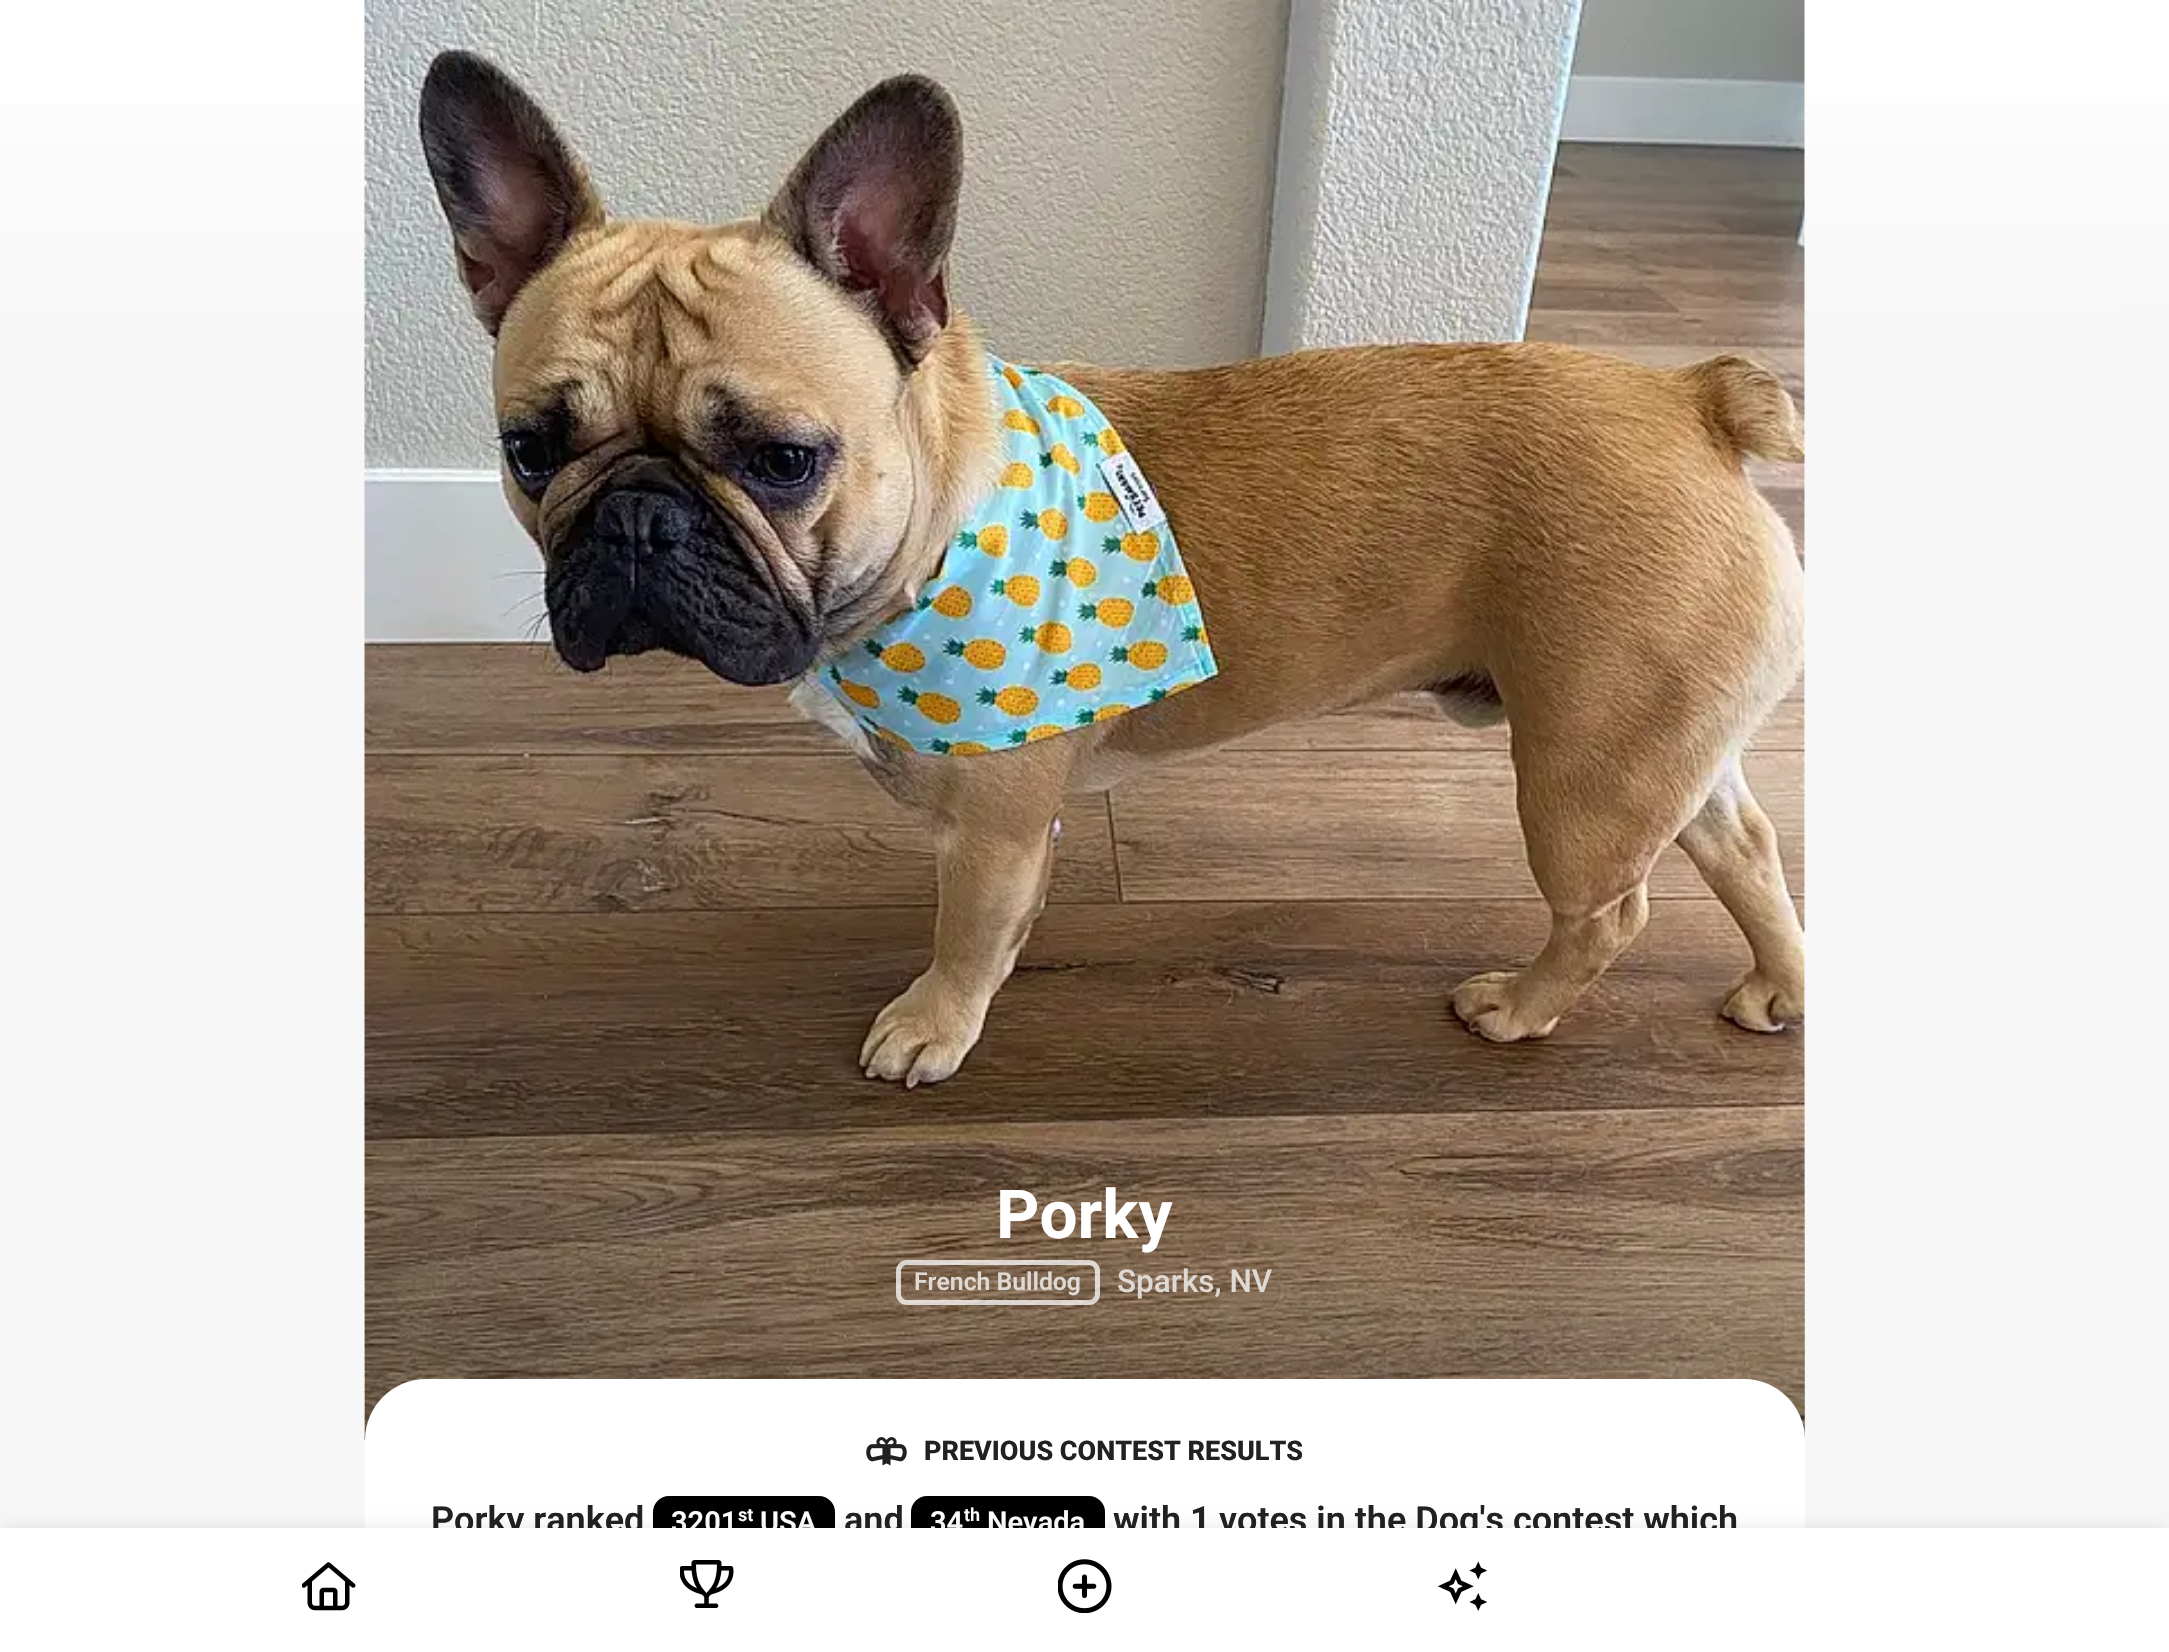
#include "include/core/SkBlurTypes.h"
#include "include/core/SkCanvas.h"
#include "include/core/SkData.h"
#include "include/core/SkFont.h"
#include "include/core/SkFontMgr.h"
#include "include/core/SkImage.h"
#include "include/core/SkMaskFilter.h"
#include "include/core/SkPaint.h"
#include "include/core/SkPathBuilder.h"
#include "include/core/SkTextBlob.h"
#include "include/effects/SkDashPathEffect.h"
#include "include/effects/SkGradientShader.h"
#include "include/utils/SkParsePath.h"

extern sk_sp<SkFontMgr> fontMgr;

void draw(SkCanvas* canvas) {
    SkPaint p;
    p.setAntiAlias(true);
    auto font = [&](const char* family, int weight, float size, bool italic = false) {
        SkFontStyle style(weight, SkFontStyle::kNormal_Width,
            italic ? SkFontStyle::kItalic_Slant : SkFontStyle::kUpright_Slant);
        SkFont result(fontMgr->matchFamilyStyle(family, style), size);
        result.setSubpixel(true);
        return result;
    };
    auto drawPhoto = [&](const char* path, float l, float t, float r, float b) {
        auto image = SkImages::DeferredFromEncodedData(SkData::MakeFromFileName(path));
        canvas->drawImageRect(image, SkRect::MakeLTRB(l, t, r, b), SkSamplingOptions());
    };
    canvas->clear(0xFFFFFFFF);
    {
        const SkColor colors[] = {0xFFFFFFFF, 0xFFF7F7F7};
        const float stops[] = {0, 0.2f};
        const SkPoint ends[] = {{1084, 0}, {1085, 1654}};
        p.setShader(SkGradientShader::MakeLinear(ends, colors, stops, 2, SkTileMode::kClamp));
        p.setAlpha(255);
    }
    canvas->drawRect(SkRect::MakeLTRB(0, 103, 2169, 1528), p);
    p.setShader(nullptr);
    p.setColor(0xFFFFFFFF);
    canvas->drawRect(SkRect::MakeLTRB(365, 103, 1805, 1528), p);
    drawPhoto("media/1.png", 364, 0, 1805, 1440);
    {
        const SkColor colors[] = {0x00000000, 0x66000000};
        const float stops[] = {0.7f, 1};
        const SkPoint ends[] = {{1084, 0}, {1085, 1440}};
        p.setShader(SkGradientShader::MakeLinear(ends, colors, stops, 2, SkTileMode::kClamp));
        p.setAlpha(255);
    }
    canvas->drawRect(SkRect::MakeLTRB(365, 1031, 1805, 1440), p);
    auto font1 = font("Roboto", 700, 67.5f);
    p.setShader(nullptr);
    p.setColor(0xFFFFFFFF);
    canvas->drawString("Porky", 996, 1238, font1, p);
    p.setStyle(SkPaint::kStroke_Style);
    p.setStrokeWidth(5);
    p.setColor(0xBFFFFFFF);
    canvas->drawRoundRect(SkRect::MakeLTRB(898.5f, 1262.5f, 1097.5f, 1302.5f), 8.5f, 8.5f, p);
    auto font2 = font("Roboto", 600, 24.75f);
    p.setStyle(SkPaint::kFill_Style);
    p.setColor(0xFFDFD9D4);
    canvas->drawString("French Bulldog", 914, 1290, font2, p);
    auto font3 = font("Roboto", 500, 31.5f);
    canvas->drawString("Sparks, NV", 1117, 1292, font3, p);
    p.setColor(0xFFFFFFFF);
    canvas->drawPath(SkPathBuilder().moveTo(426, 1379).lineTo(1744, 1379).cubicTo(1777.5f, 1379, 1805, 1406.5f, 1805, 1440).lineTo(365, 1440).cubicTo(365, 1406.5f, 392.5f, 1379, 426, 1379).close().detach(), p);
    drawPhoto("media/2.png", 866, 1437, 907, 1466);
    auto font4 = font("Roboto", 800, 27);
    p.setColor(0xFF212121);
    canvas->drawString("PREVIOUS CONTEST RESULTS", 924, 1460, font4, p);
    auto font5 = font("Roboto", 600, 36);
    canvas->drawString("Porky ranked", 431, 1532, font5, p);
    p.setColor(0xFF000000);
    canvas->drawRoundRect(SkRect::MakeLTRB(653, 1496, 835, 1550), 16, 16, p);
    auto font6 = font("Roboto", 600, 29);
    p.setColor(0xFFFFFFFF);
    canvas->drawString("3201", 671, 1532, font6, p);
    auto font7 = font("Roboto", 600, 18);
    canvas->drawString("st", 738, 1521, font7, p);
    canvas->drawString("USA", 760, 1532, font6, p);
    p.setColor(0xFF212121);
    canvas->drawString("and", 844, 1532, font5, p);
    p.setColor(0xFF000000);
    canvas->drawRoundRect(SkRect::MakeLTRB(911, 1496, 1105, 1550), 16, 16, p);
    p.setColor(0xFFFFFFFF);
    canvas->drawString("34", 930, 1532, font6, p);
    canvas->drawString("th", 964, 1521, font7, p);
    canvas->drawString("Nevada", 987, 1532, font6, p);
    p.setColor(0xFF212121);
    canvas->drawString("with", 1113, 1532, font5, p);
    auto font8 = font("Roboto", 700, 36);
    canvas->drawString("1", 1190, 1532, font8, p);
    canvas->drawString("votes in the Dog's contest which", 1219, 1532, font5, p);
    p.setColor(0x1F000000);
    p.setMaskFilter(SkMaskFilter::MakeBlur(kNormal_SkBlurStyle, 9));
    canvas->drawRoundRect(SkRect::MakeLTRB(0, 1530, 2169, 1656), 7, 7, p);
    p.setMaskFilter(nullptr);
    p.setColor(0xFFFFFFFF);
    canvas->drawRect(SkRect::MakeLTRB(0, 1528, 2169, 1652), p);
    drawPhoto("media/3.png", 302, 1562, 356, 1611);
    drawPhoto("media/4.png", 680, 1560, 734, 1608);
    drawPhoto("media/5.png", 1058, 1559, 1112, 1613);
    drawPhoto("media/6.png", 1437, 1561, 1488, 1611);
}
